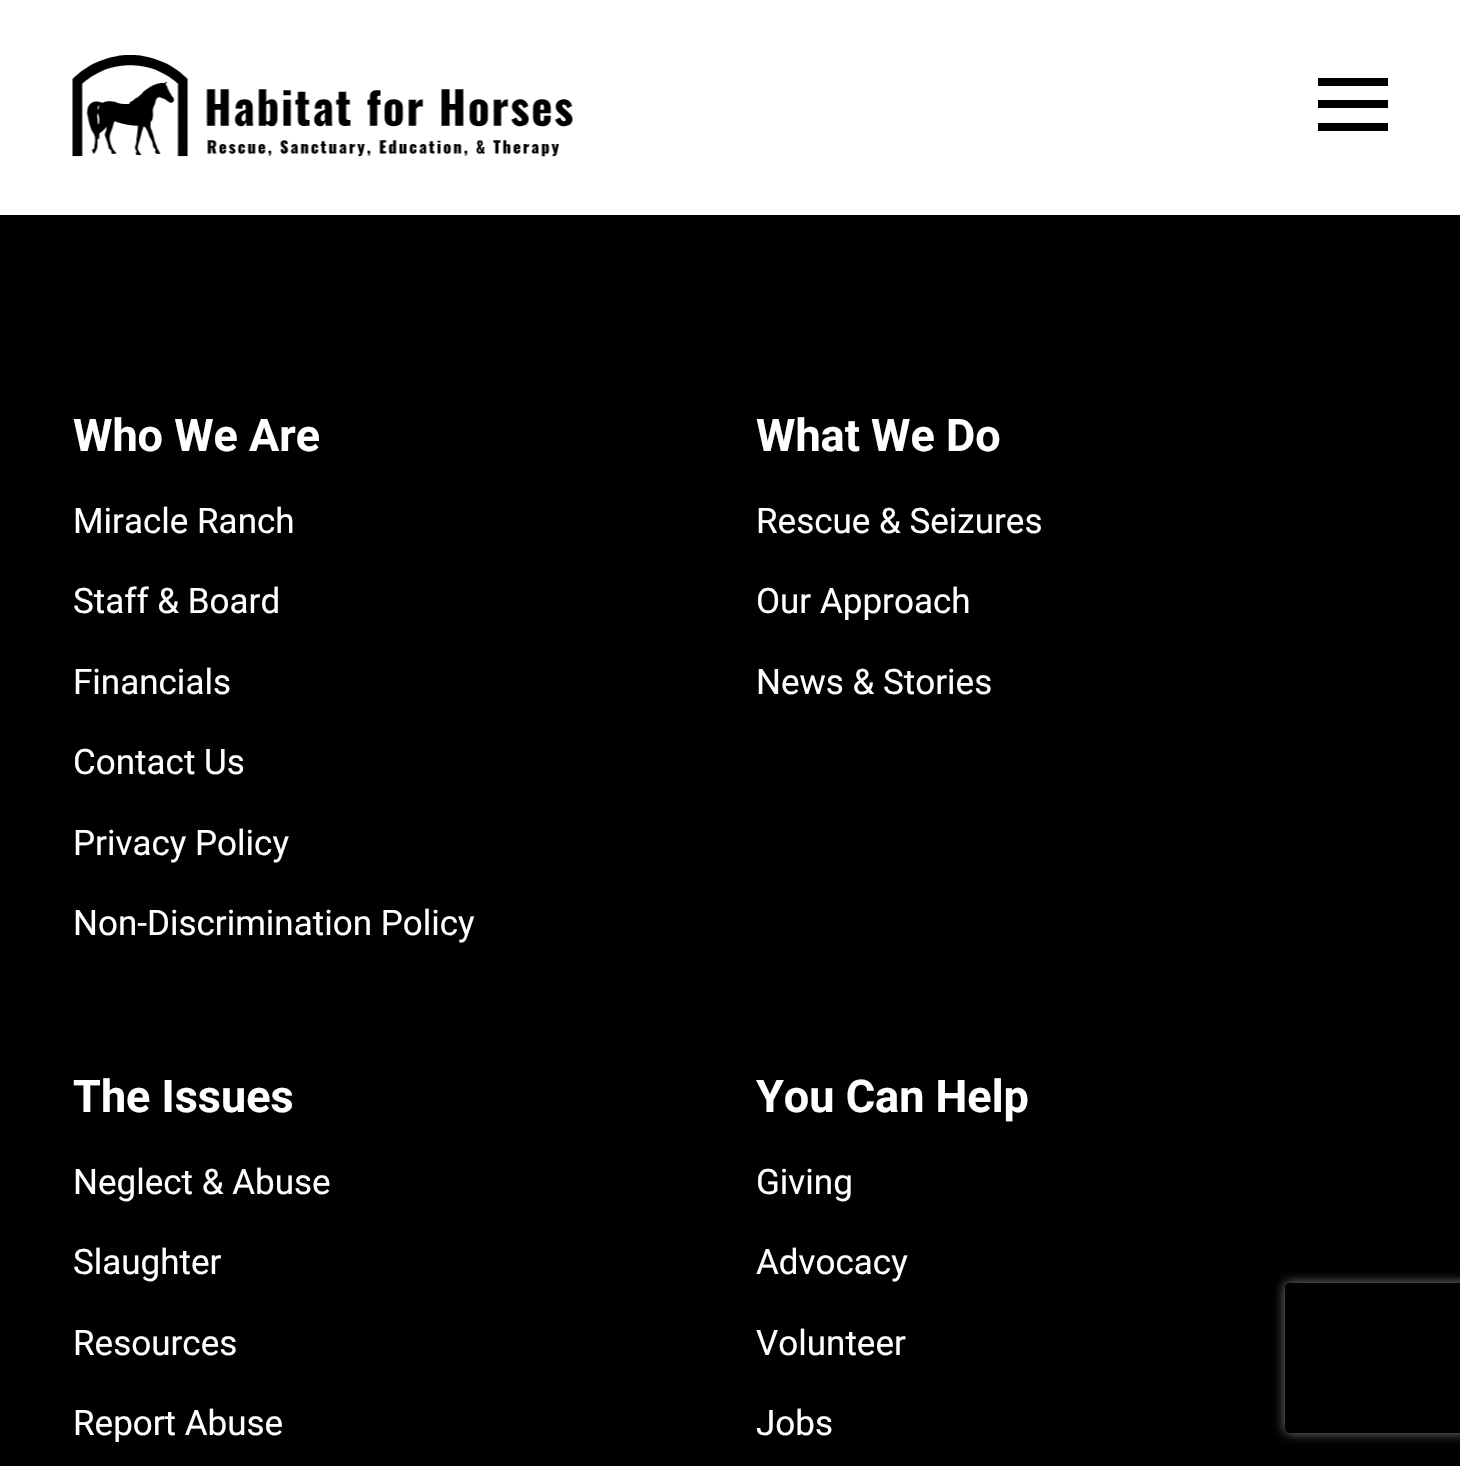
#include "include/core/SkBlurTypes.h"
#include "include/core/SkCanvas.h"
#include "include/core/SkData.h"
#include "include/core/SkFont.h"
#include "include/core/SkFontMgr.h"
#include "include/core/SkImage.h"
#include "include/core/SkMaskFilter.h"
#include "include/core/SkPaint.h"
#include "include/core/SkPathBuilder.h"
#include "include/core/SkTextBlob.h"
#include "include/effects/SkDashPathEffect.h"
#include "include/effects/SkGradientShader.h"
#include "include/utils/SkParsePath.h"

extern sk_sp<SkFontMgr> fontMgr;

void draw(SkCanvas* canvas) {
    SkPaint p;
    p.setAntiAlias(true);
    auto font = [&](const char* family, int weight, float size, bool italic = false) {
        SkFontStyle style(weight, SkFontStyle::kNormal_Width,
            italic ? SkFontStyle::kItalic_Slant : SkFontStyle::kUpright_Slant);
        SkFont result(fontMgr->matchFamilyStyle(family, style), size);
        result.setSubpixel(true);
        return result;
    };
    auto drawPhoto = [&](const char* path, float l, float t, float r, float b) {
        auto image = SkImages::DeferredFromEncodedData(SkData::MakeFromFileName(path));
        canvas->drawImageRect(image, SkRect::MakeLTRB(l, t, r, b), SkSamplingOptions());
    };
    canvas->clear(0xFF000000);
    p.setColor(0xFFFFFFFF);
    canvas->drawRect(SkRect::MakeLTRB(0, 0, 1460, 215), p);
    drawPhoto("media/1.png", 72, 55, 573, 157);
    {
        const struct { float l, t, r, b; SkColor color; } items[] = {
            {1318, 78, 1388, 86, 0xFF000000},
            {1318, 100, 1388, 108, 0xFF000000},
            {1318, 123, 1388, 131, 0xFF000000},
        };
        for (auto [l, t, r, b, color] : items) {
            p.setColor(color);
            canvas->drawRect(SkRect::MakeLTRB(l, t, r, b), p);
        }
    }
    auto font1 = font("Roboto", 700, 45);
    p.setColor(0xFFFFFFFF);
    canvas->drawString("Who We Are", 73, 451, font1, p);
    auto font2 = font("Roboto", 400, 35);
    {
        const struct { const char* s; float x, y; } items[] = {
            {"Miracle Ranch", 73, 533},
            {"Staff & Board", 73, 613},
            {"Financials", 73, 694},
            {"Contact Us", 73, 774},
            {"Privacy Policy", 73, 855},
            {"Non-Discrimination Policy", 73, 935},
        };
        for (auto [s, x, y] : items) {
            canvas->drawString(s, x, y, font2, p);
        }
    }
    canvas->drawString("What We Do", 756, 451, font1, p);
    {
        const struct { const char* s; float x, y; } items[] = {
            {"Rescue & Seizures", 756, 533},
            {"Our Approach", 756, 613},
            {"News & Stories", 756, 694},
        };
        for (auto [s, x, y] : items) {
            canvas->drawString(s, x, y, font2, p);
        }
    }
    canvas->drawString("The Issues", 73, 1112, font1, p);
    {
        const struct { const char* s; float x, y; } items[] = {
            {"Neglect & Abuse", 73, 1194},
            {"Slaughter", 73, 1274},
            {"Resources", 73, 1355},
            {"Report Abuse", 73, 1435},
        };
        for (auto [s, x, y] : items) {
            canvas->drawString(s, x, y, font2, p);
        }
    }
    canvas->drawString("You Can Help", 756, 1112, font1, p);
    {
        const struct { const char* s; float x, y; } items[] = {
            {"Giving", 756, 1194},
            {"Advocacy", 756, 1274},
            {"Volunteer", 756, 1355},
            {"Jobs", 756, 1435},
        };
        for (auto [s, x, y] : items) {
            canvas->drawString(s, x, y, font2, p);
        }
    }
    canvas->save();
    canvas->clipPath(SkPathBuilder(SkPathFillType::kEvenOdd).moveTo(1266, 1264).lineTo(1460, 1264).lineTo(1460, 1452).lineTo(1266, 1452).close().moveTo(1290, 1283).lineTo(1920, 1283).cubicTo(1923, 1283, 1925, 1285, 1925, 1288).lineTo(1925, 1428).cubicTo(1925, 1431, 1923, 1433, 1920, 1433).lineTo(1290, 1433).cubicTo(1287, 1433, 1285, 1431, 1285, 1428).lineTo(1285, 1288).cubicTo(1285, 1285, 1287, 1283, 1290, 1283).close().detach(), true);
    p.setColor(0xFF808080);
    p.setMaskFilter(SkMaskFilter::MakeBlur(kNormal_SkBlurStyle, 6));
    canvas->drawRoundRect(SkRect::MakeLTRB(1285, 1283, 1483, 1433), 5, 5, p);
    p.setMaskFilter(nullptr);
    canvas->restore();
}
